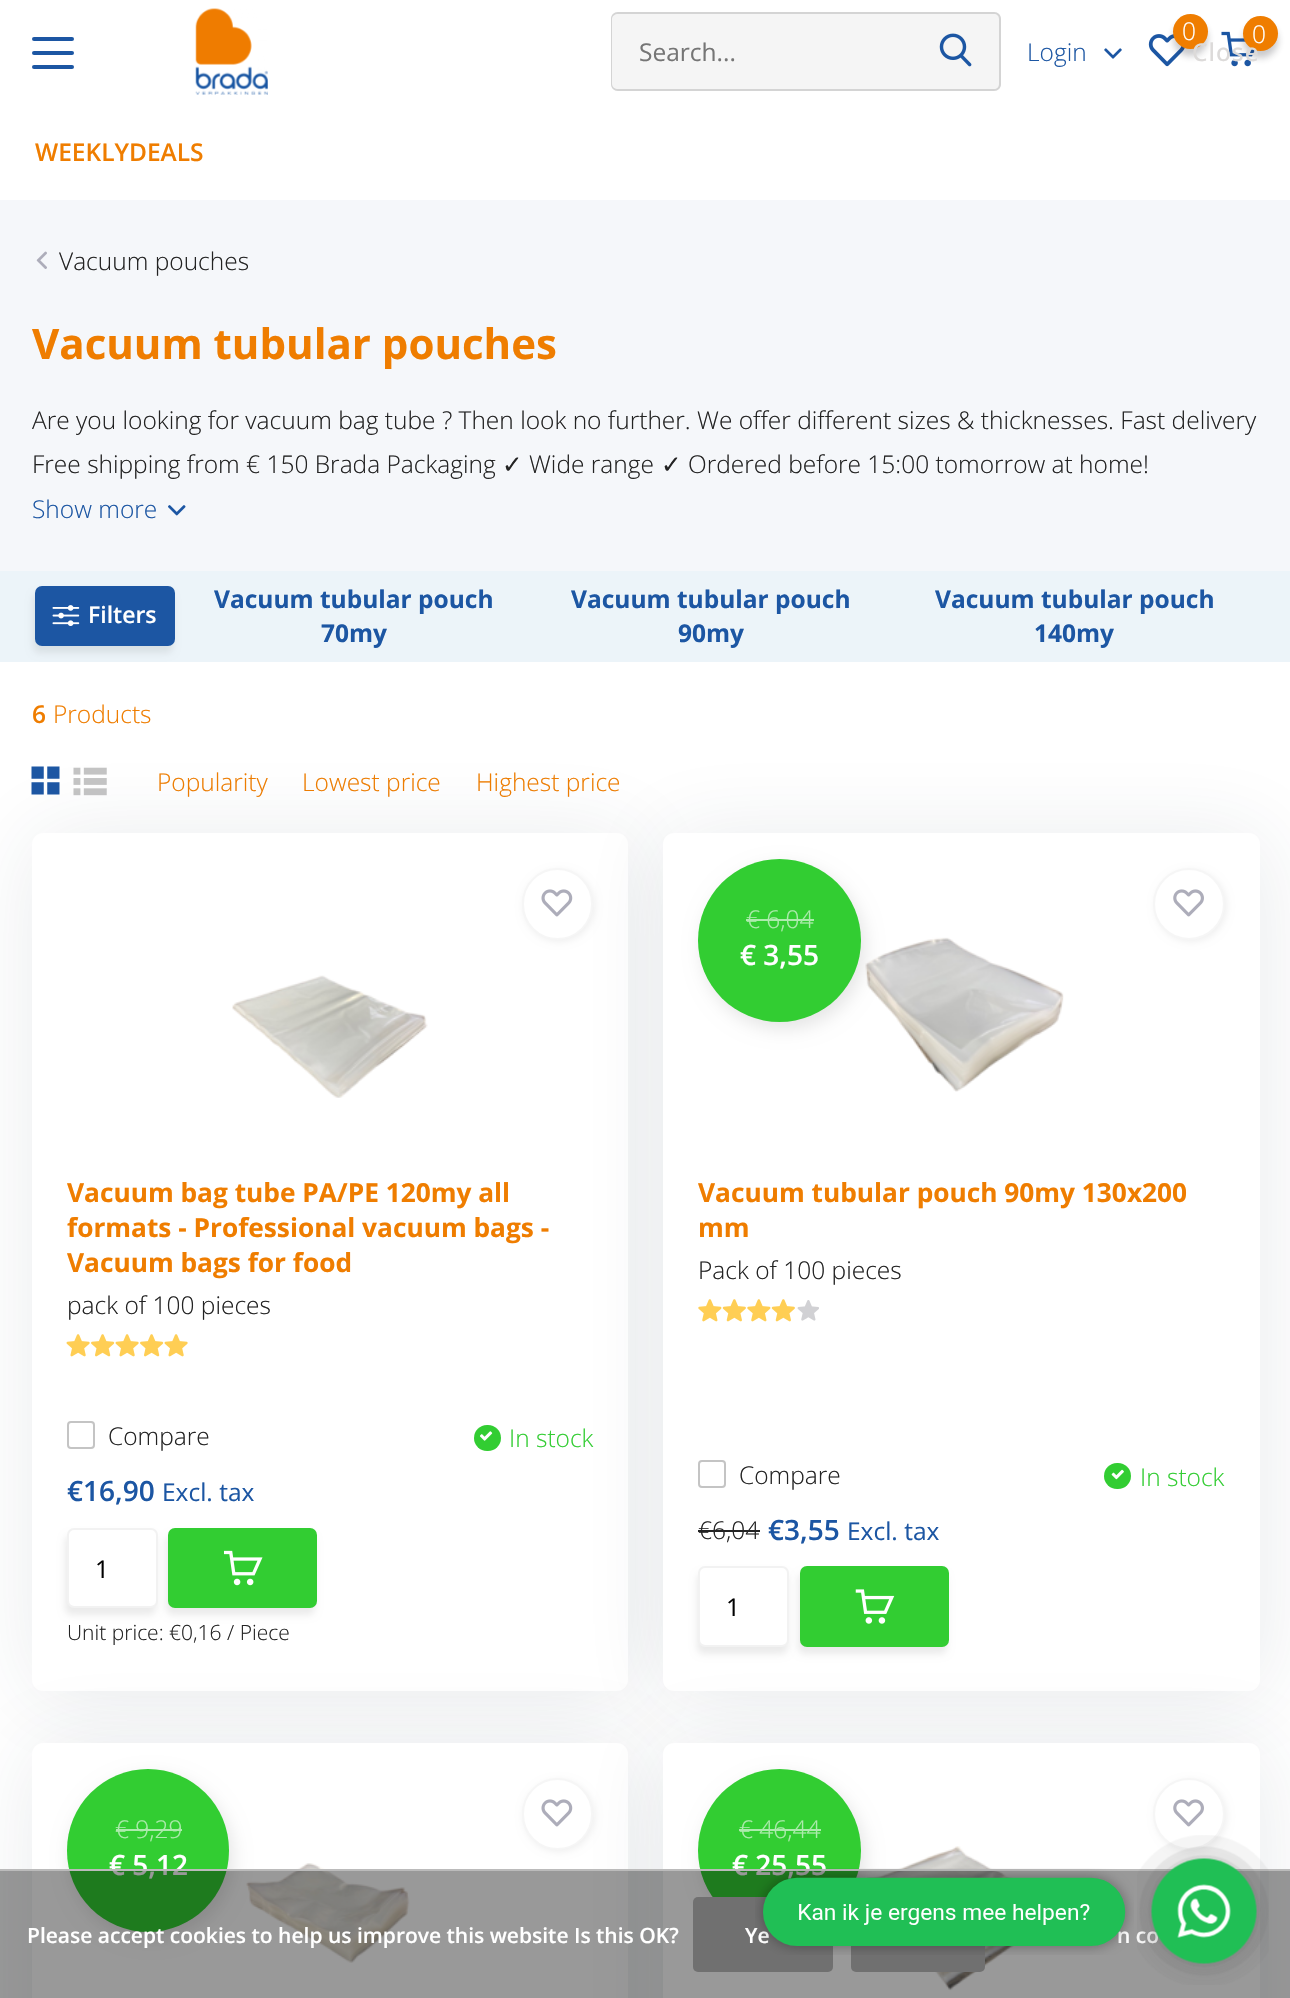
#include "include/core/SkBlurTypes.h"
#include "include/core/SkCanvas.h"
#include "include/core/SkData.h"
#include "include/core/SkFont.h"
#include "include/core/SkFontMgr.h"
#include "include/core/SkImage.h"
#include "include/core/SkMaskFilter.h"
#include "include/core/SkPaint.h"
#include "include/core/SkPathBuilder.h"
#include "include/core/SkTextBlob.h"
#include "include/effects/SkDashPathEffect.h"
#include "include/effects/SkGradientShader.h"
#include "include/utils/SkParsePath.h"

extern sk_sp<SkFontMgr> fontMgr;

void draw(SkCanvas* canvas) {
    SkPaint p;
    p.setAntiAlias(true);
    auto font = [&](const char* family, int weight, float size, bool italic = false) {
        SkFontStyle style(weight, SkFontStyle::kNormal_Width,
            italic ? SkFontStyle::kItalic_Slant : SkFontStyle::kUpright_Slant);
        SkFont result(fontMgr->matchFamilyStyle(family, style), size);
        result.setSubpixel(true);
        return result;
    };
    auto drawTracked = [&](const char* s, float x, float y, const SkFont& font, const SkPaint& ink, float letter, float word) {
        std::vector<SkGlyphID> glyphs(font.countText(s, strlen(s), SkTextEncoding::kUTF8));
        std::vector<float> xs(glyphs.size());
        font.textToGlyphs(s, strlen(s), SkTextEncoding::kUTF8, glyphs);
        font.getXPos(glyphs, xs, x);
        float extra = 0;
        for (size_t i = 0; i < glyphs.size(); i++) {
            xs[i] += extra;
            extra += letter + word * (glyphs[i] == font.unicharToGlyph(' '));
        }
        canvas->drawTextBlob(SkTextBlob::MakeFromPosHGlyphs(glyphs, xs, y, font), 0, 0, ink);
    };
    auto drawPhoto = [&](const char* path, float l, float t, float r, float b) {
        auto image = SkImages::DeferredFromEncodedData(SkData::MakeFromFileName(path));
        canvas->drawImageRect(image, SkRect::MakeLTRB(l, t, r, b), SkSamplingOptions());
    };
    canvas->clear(0xFFFFFFFF);
    p.setColor(0xFF1C56A3);
    canvas->drawRoundRect(SkRect::MakeLTRB(32, 37, 74, 41), 2, 2, p);
    canvas->drawRoundRect(SkRect::MakeLTRB(32, 51, 74, 55), 2, 2, p);
    canvas->drawRoundRect(SkRect::MakeLTRB(32, 65, 74, 69), 2, 2, p);
    drawPhoto("media/1.png", 195, 8, 268, 95);
    drawPhoto("media/2.png", 1148, 34, 1185, 67);
    p.setColor(0x40282830);
    p.setMaskFilter(SkMaskFilter::MakeBlur(kNormal_SkBlurStyle, 3.5f));
    canvas->drawRoundRect(SkRect::MakeLTRB(1173, 21, 1208, 56), 17.5f, 17.5f, p);
    p.setMaskFilter(nullptr);
    p.setColor(0xFFEF7D00);
    canvas->drawCircle(1190.5f, 31.5f, 17.5f, p);
    auto font1 = font("Open Sans", 300, 24.5f);
    p.setColor(0xFFFFFFFF);
    canvas->drawString("0", 1182, 40, font1, p);
    drawPhoto("media/3.png", 1221, 31, 1255, 67);
    p.setColor(0x40282830);
    p.setMaskFilter(SkMaskFilter::MakeBlur(kNormal_SkBlurStyle, 3.5f));
    canvas->drawRoundRect(SkRect::MakeLTRB(1243, 23, 1278, 58), 17.5f, 17.5f, p);
    p.setMaskFilter(nullptr);
    p.setColor(0xFFEF7D00);
    canvas->drawCircle(1260.5f, 33.5f, 17.5f, p);
    p.setColor(0xFFFFFFFF);
    canvas->drawString("0", 1252, 43, font1, p);
    p.setColor(0xFFF5F5F5);
    canvas->drawPath(SkPathBuilder().moveTo(618, 12).lineTo(914, 12).lineTo(914, 91).lineTo(618, 91).cubicTo(614, 91, 611, 88, 611, 84).lineTo(611, 19).cubicTo(611, 15, 614, 12, 618, 12).close().detach(), p);
    p.setColor(0xFFD4D4D4);
    canvas->drawPath(SkPathBuilder(SkPathFillType::kEvenOdd).moveTo(618, 12).lineTo(914, 12).lineTo(914, 91).lineTo(618, 91).cubicTo(614, 91, 611, 88, 611, 84).lineTo(611, 19).cubicTo(611, 15, 614, 12, 618, 12).close().moveTo(618, 14).lineTo(914, 14).lineTo(914, 89).lineTo(618, 89).cubicTo(615, 89, 612, 87, 612, 84).lineTo(612, 19).cubicTo(612, 16, 615, 14, 618, 14).close().detach(), p);
    auto font2 = font("Open Sans", 400, 24.5f);
    p.setColor(0xFF757575);
    canvas->drawString("Search...", 639, 61, font2, p);
    p.setColor(0xFFF5F5F5);
    canvas->drawPath(SkPathBuilder().moveTo(914, 12).lineTo(994, 12).cubicTo(998, 12, 1001, 15, 1001, 19).lineTo(1001, 84).cubicTo(1001, 88, 998, 91, 994, 91).lineTo(914, 91).close().detach(), p);
    p.setColor(0xFFD4D4D4);
    canvas->drawPath(SkPathBuilder(SkPathFillType::kEvenOdd).moveTo(914, 12).lineTo(994, 12).cubicTo(998, 12, 1001, 15, 1001, 19).lineTo(1001, 84).cubicTo(1001, 88, 998, 91, 994, 91).lineTo(914, 91).close().moveTo(914, 14).lineTo(994, 14).cubicTo(997, 14, 999, 16, 999, 19).lineTo(999, 84).cubicTo(999, 87, 997, 89, 994, 89).lineTo(914, 89).close().detach(), p);
    drawPhoto("media/4.png", 939, 33, 972, 67);
    p.setColor(0xFF1C56A3);
    canvas->drawString("Login", 1027, 61, font1, p);
    drawPhoto("media/5.png", 1104, 48, 1122, 59);
    auto font3 = font("Open Sans", 500, 24.5f);
    p.setColor(0xFFDCDAD9);
    drawTracked("Close", 1192, 61, font3, p, 1, 0);
    auto font4 = font("Open Sans", 600, 24.5f);
    p.setColor(0xFFEF7D00);
    canvas->drawString("WEEKLYDEALS", 35, 161, font4, p);
    p.setColor(0xFFF5F7FA);
    canvas->drawRect(SkRect::MakeLTRB(0, 200, 1290, 571), p);
    drawPhoto("media/6.png", 36, 251, 47, 269);
    p.setColor(0xFF232323);
    canvas->drawString("Vacuum pouches", 59, 270, font1, p);
    auto font5 = font("Open Sans", 700, 42);
    p.setColor(0xFFEF7D00);
    canvas->drawString("Vacuum tubular pouches", 32, 359, font5, p);
    p.setColor(0xFF232323);
    canvas->drawString("Are you looking for vacuum bag tube ? Then look no further. We offer different sizes & thicknesses. Fast delivery", 32, 429, font1, p);
    canvas->drawString("Free shipping from € 150 Brada Packaging", 32, 473, font1, p);
    auto font6 = font("DejaVu Sans", 400, 24.5f);
    canvas->drawString("✓", 502, 473, font6, p);
    canvas->drawString("Wide range", 529, 473, font1, p);
    canvas->drawString("✓", 661, 473, font6, p);
    canvas->drawString("Ordered before 15:00 tomorrow at home!", 688, 473, font1, p);
    p.setColor(0xFF1C56A3);
    canvas->drawString("Show more", 32, 518, font1, p);
    drawPhoto("media/7.png", 168, 505, 186, 516);
    p.setColor(0xFFECF4F9);
    canvas->drawRect(SkRect::MakeLTRB(0, 571, 1290, 662), p);
    p.setColor(0x14000000);
    p.setMaskFilter(SkMaskFilter::MakeBlur(kNormal_SkBlurStyle, 3.5f));
    canvas->drawRoundRect(SkRect::MakeLTRB(33, 593, 173, 653), 7, 7, p);
    p.setMaskFilter(nullptr);
    p.setColor(0xFF1C56A3);
    canvas->drawRoundRect(SkRect::MakeLTRB(35, 586, 175, 646), 7, 7, p);
    drawPhoto("media/8.png", 52, 605, 80, 626);
    auto font7 = font("Open Sans", 600, 23);
    p.setColor(0xFFFFFFFF);
    canvas->drawString("Filters", 88, 623, font7, p);
    auto font8 = font("Open Sans", 700, 24.5f);
    p.setColor(0xFF1C56A3);
    {
        const struct { const char* s; float x, y; } items[] = {
            {"Vacuum tubular pouch", 214, 608},
            {"70my", 321, 642},
            {"Vacuum tubular pouch", 571, 608},
            {"90my", 678, 642},
            {"Vacuum tubular pouch", 935, 608},
            {"140my", 1034, 642},
        };
        for (auto [s, x, y] : items) {
            canvas->drawString(s, x, y, font8, p);
        }
    }
    p.setColor(0xFFEF7D00);
    canvas->drawString("6", 32, 723, font4, p);
    canvas->drawString("Products", 53, 723, font1, p);
    drawPhoto("media/9.png", 31, 766, 60, 795);
    drawPhoto("media/10.png", 73, 767, 107, 796);
    {
        const struct { const char* s; float x, y; } items[] = {
            {"Popularity", 157, 791},
            {"Lowest price", 302, 791},
            {"Highest price", 476, 791},
        };
        for (auto [s, x, y] : items) {
            canvas->drawString(s, x, y, font1, p);
        }
    }
    p.setColor(0x1A263F4D);
    p.setMaskFilter(SkMaskFilter::MakeBlur(kNormal_SkBlurStyle, 44));
    canvas->drawRoundRect(SkRect::MakeLTRB(35, 837, 632, 1694), 11, 11, p);
    p.setMaskFilter(nullptr);
    p.setColor(0xFFFFFFFF);
    canvas->drawRoundRect(SkRect::MakeLTRB(32, 833, 628, 1691), 11, 11, p);
    p.setColor(0x0F000000);
    p.setMaskFilter(SkMaskFilter::MakeBlur(kNormal_SkBlurStyle, 3.5f));
    canvas->drawRoundRect(SkRect::MakeLTRB(523, 870, 595, 942), 36, 36, p);
    p.setMaskFilter(nullptr);
    p.setColor(0x1A263F4D);
    p.setMaskFilter(SkMaskFilter::MakeBlur(kNormal_SkBlurStyle, 44));
    canvas->drawRoundRect(SkRect::MakeLTRB(667, 837, 1264, 1694), 11, 11, p);
    p.setMaskFilter(nullptr);
    p.setColor(0xFFFFFFFF);
    canvas->drawRoundRect(SkRect::MakeLTRB(523, 869, 592, 939), 34.5f, 34.5f, p);
    p.setStyle(SkPaint::kStroke_Style);
    p.setStrokeWidth(2);
    p.setColor(0xFFF6F6F6);
    canvas->drawRoundRect(SkRect::MakeLTRB(523, 869, 592, 939), 34.5f, 34.5f, p);
    drawPhoto("media/11.png", 541, 889, 573, 917);
    drawPhoto("media/12.png", 232, 975, 428, 1098);
    auto font9 = font("Open Sans", 700, 26.25f);
    p.setStyle(SkPaint::kFill_Style);
    p.setColor(0xFFEF7D00);
    {
        const struct { const char* s; float x, y; } items[] = {
            {"Vacuum bag tube PA/PE 120my all", 67, 1202},
            {"formats - Professional vacuum bags -", 67, 1237},
            {"Vacuum bags for food", 67, 1272},
        };
        for (auto [s, x, y] : items) {
            canvas->drawString(s, x, y, font9, p);
        }
    }
    p.setColor(0xFF232323);
    canvas->drawString("pack of 100 pieces", 67, 1314, font1, p);
    drawPhoto("media/13.png", 66, 1334, 90, 1357);
    drawPhoto("media/14.png", 91, 1334, 115, 1357);
    drawPhoto("media/13.png", 115, 1334, 139, 1357);
    drawPhoto("media/14.png", 140, 1334, 164, 1357);
    drawPhoto("media/13.png", 164, 1334, 188, 1357);
    p.setStyle(SkPaint::kStroke_Style);
    p.setColor(0xFFC4C4C4);
    canvas->drawRoundRect(SkRect::MakeLTRB(68, 1422, 94, 1448), 3, 3, p);
    p.setStyle(SkPaint::kFill_Style);
    p.setColor(0xFF232323);
    canvas->drawString("Compare", 108, 1445, font1, p);
    p.setColor(0xFF32CD32);
    canvas->drawRoundRect(SkRect::MakeLTRB(474, 1425, 501, 1451), 13, 13, p);
    drawPhoto("media/15.png", 480, 1431, 493, 1441);
    canvas->drawString("In stock", 509, 1447, font1, p);
    auto font10 = font("Open Sans", 600, 28);
    p.setColor(0xFF1C56A3);
    canvas->drawString("€16,90", 67, 1501, font10, p);
    canvas->drawString("Excl. tax", 162, 1501, font2, p);
    p.setColor(0x14000000);
    p.setMaskFilter(SkMaskFilter::MakeBlur(kNormal_SkBlurStyle, 3.5f));
    canvas->drawRoundRect(SkRect::MakeLTRB(65, 1535, 156, 1615), 7, 7, p);
    p.setMaskFilter(nullptr);
    p.setMaskFilter(SkMaskFilter::MakeBlur(kNormal_SkBlurStyle, 3.5f));
    canvas->drawRoundRect(SkRect::MakeLTRB(166, 1535, 315, 1615), 7, 7, p);
    p.setMaskFilter(nullptr);
    p.setColor(0xFFFFFFFF);
    canvas->drawRoundRect(SkRect::MakeLTRB(68, 1529, 157, 1607), 6, 6, p);
    p.setStyle(SkPaint::kStroke_Style);
    p.setColor(0xFFF2F2F2);
    canvas->drawRoundRect(SkRect::MakeLTRB(68, 1529, 157, 1607), 6, 6, p);
    p.setStyle(SkPaint::kFill_Style);
    p.setColor(0xFF000000);
    canvas->drawString("1", 95, 1578, font2, p);
    p.setColor(0xFF32CD32);
    canvas->drawRoundRect(SkRect::MakeLTRB(168, 1528, 317, 1608), 7, 7, p);
    drawPhoto("media/16.png", 224, 1550, 263, 1586);
    auto font11 = font("Open Sans", 300, 21);
    p.setColor(0xFF232323);
    canvas->drawString("Unit price: €0,16 / Piece", 67, 1640, font11, p);
    p.setColor(0xFFFFFFFF);
    canvas->drawRoundRect(SkRect::MakeLTRB(663, 833, 1260, 1691), 11, 11, p);
    drawPhoto("media/17.png", 865, 937, 1064, 1092);
    p.setColor(0x1A000000);
    p.setMaskFilter(SkMaskFilter::MakeBlur(kNormal_SkBlurStyle, 9));
    canvas->drawRoundRect(SkRect::MakeLTRB(702, 866, 865, 1029), 81.5f, 81.5f, p);
    p.setMaskFilter(nullptr);
    p.setColor(0xFF32CD32);
    canvas->drawCircle(779.5f, 940.5f, 81.5f, p);
    p.setColor(0xFFADEBAD);
    canvas->drawString("€ 6,04", 746, 928, font1, p);
    canvas->drawRect(SkRect::MakeLTRB(746, 919, 814, 921), p);
    p.setColor(0xFFFFFFFF);
    canvas->drawString("€ 3,55", 740, 965, font10, p);
    p.setColor(0x0F000000);
    p.setMaskFilter(SkMaskFilter::MakeBlur(kNormal_SkBlurStyle, 3.5f));
    canvas->drawRoundRect(SkRect::MakeLTRB(1155, 870, 1227, 942), 36, 36, p);
    p.setMaskFilter(nullptr);
    p.setColor(0xFFFFFFFF);
    canvas->drawCircle(1189, 904, 35, p);
    p.setStyle(SkPaint::kStroke_Style);
    p.setColor(0xFFF6F6F6);
    canvas->drawCircle(1189, 904, 35, p);
    drawPhoto("media/18.png", 1173, 889, 1204, 917);
    p.setStyle(SkPaint::kFill_Style);
    p.setColor(0xFFEF7D00);
    canvas->drawString("Vacuum tubular pouch 90my 130x200", 698, 1202, font9, p);
    canvas->drawString("mm", 698, 1237, font9, p);
    p.setColor(0xFF232323);
    canvas->drawString("Pack of 100 pieces", 698, 1279, font1, p);
    drawPhoto("media/19.png", 698, 1299, 722, 1322);
    drawPhoto("media/20.png", 722, 1299, 746, 1322);
    drawPhoto("media/19.png", 747, 1299, 771, 1322);
    drawPhoto("media/20.png", 771, 1299, 795, 1322);
    drawPhoto("media/21.png", 797, 1300, 819, 1321);
    p.setStyle(SkPaint::kStroke_Style);
    p.setColor(0xFFC4C4C4);
    canvas->drawRoundRect(SkRect::MakeLTRB(699, 1461, 725, 1487), 3, 3, p);
    p.setStyle(SkPaint::kFill_Style);
    p.setColor(0xFF232323);
    canvas->drawString("Compare", 739, 1484, font1, p);
    p.setColor(0xFF32CD32);
    canvas->drawRoundRect(SkRect::MakeLTRB(1104, 1463, 1131, 1489), 13, 13, p);
    drawPhoto("media/22.png", 1111, 1469, 1124, 1480);
    canvas->drawString("In stock", 1140, 1486, font1, p);
    p.setColor(0xFF232323);
    canvas->drawString("€6,04", 698, 1539, font1, p);
    canvas->drawRect(SkRect::MakeLTRB(698, 1530, 760, 1532), p);
    p.setColor(0xFF1C56A3);
    canvas->drawString("€3,55", 768, 1540, font10, p);
    canvas->drawString("Excl. tax", 847, 1540, font2, p);
    p.setColor(0x14000000);
    p.setMaskFilter(SkMaskFilter::MakeBlur(kNormal_SkBlurStyle, 3.5f));
    canvas->drawRoundRect(SkRect::MakeLTRB(697, 1573, 788, 1654), 7, 7, p);
    p.setMaskFilter(nullptr);
    p.setMaskFilter(SkMaskFilter::MakeBlur(kNormal_SkBlurStyle, 3.5f));
    canvas->drawRoundRect(SkRect::MakeLTRB(798, 1573, 947, 1654), 7, 7, p);
    p.setMaskFilter(nullptr);
    p.setColor(0x1A263F4D);
    p.setMaskFilter(SkMaskFilter::MakeBlur(kNormal_SkBlurStyle, 44));
    canvas->drawRoundRect(SkRect::MakeLTRB(35, 1747, 632, 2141), 11, 11, p);
    p.setMaskFilter(nullptr);
    p.setColor(0xFF32CD32);
    canvas->drawRoundRect(SkRect::MakeLTRB(800, 1566, 949, 1647), 7, 7, p);
    drawPhoto("media/23.png", 855, 1589, 895, 1624);
    p.setColor(0xFFFFFFFF);
    canvas->drawRoundRect(SkRect::MakeLTRB(32, 1743, 628, 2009), 11, 11, p);
    p.setColor(0x1A263F4D);
    p.setMaskFilter(SkMaskFilter::MakeBlur(kNormal_SkBlurStyle, 44));
    canvas->drawRoundRect(SkRect::MakeLTRB(667, 1747, 1264, 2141), 11, 11, p);
    p.setMaskFilter(nullptr);
    p.setColor(0xFFFFFFFF);
    canvas->drawRoundRect(SkRect::MakeLTRB(699, 1567, 788, 1646), 6, 6, p);
    p.setStyle(SkPaint::kStroke_Style);
    p.setColor(0xFFF2F2F2);
    canvas->drawRoundRect(SkRect::MakeLTRB(699, 1567, 788, 1646), 6, 6, p);
    p.setStyle(SkPaint::kFill_Style);
    p.setColor(0xFF000000);
    canvas->drawString("1", 726, 1616, font2, p);
    drawPhoto("media/24.png", 246, 1863, 410, 1963);
    p.setColor(0x1A000000);
    p.setMaskFilter(SkMaskFilter::MakeBlur(kNormal_SkBlurStyle, 9));
    canvas->drawRoundRect(SkRect::MakeLTRB(70, 1776, 233, 1939), 81.5f, 81.5f, p);
    p.setMaskFilter(nullptr);
    p.setColor(0xFF32CD32);
    canvas->drawRoundRect(SkRect::MakeLTRB(67, 1769, 229, 1932), 81, 81, p);
    p.setColor(0xFFADEBAD);
    canvas->drawString("€ 9,29", 115, 1838, font1, p);
    canvas->drawRect(SkRect::MakeLTRB(116, 1829, 182, 1831), p);
    p.setColor(0xFFFFFFFF);
    canvas->drawString("€ 5,12", 109, 1875, font10, p);
    p.setColor(0x0F000000);
    p.setMaskFilter(SkMaskFilter::MakeBlur(kNormal_SkBlurStyle, 3.5f));
    canvas->drawRoundRect(SkRect::MakeLTRB(523, 1780, 595, 1852), 36, 36, p);
    p.setMaskFilter(nullptr);
    p.setColor(0xFFFFFFFF);
    canvas->drawRoundRect(SkRect::MakeLTRB(523, 1779, 592, 1849), 34.5f, 34.5f, p);
    p.setStyle(SkPaint::kStroke_Style);
    p.setColor(0xFFF6F6F6);
    canvas->drawRoundRect(SkRect::MakeLTRB(523, 1779, 592, 1849), 34.5f, 34.5f, p);
    drawPhoto("media/11.png", 541, 1799, 573, 1827);
    p.setStyle(SkPaint::kFill_Style);
    p.setColor(0xFFFFFFFF);
    canvas->drawRoundRect(SkRect::MakeLTRB(663, 1743, 1260, 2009), 11, 11, p);
    drawPhoto("media/25.png", 867, 1846, 1014, 1991);
    p.setColor(0x1A000000);
    p.setMaskFilter(SkMaskFilter::MakeBlur(kNormal_SkBlurStyle, 9));
    canvas->drawRoundRect(SkRect::MakeLTRB(702, 1776, 865, 1939), 81.5f, 81.5f, p);
    p.setMaskFilter(nullptr);
    p.setColor(0xFF32CD32);
    canvas->drawCircle(779.5f, 1850.5f, 81.5f, p);
    p.setColor(0xFFADEBAD);
    canvas->drawString("€ 46,44", 739, 1838, font1, p);
    canvas->drawRect(SkRect::MakeLTRB(739, 1829, 821, 1831), p);
    p.setColor(0xFFFFFFFF);
    canvas->drawString("€ 25,55", 732, 1875, font10, p);
    p.setColor(0x0F000000);
    p.setMaskFilter(SkMaskFilter::MakeBlur(kNormal_SkBlurStyle, 3.5f));
    canvas->drawRoundRect(SkRect::MakeLTRB(1155, 1780, 1227, 1852), 36, 36, p);
    p.setMaskFilter(nullptr);
    p.setColor(0xFFFFFFFF);
    canvas->drawCircle(1189, 1814, 35, p);
    p.setStyle(SkPaint::kStroke_Style);
    p.setColor(0xFFF6F6F6);
    canvas->drawCircle(1189, 1814, 35, p);
    drawPhoto("media/18.png", 1173, 1799, 1204, 1827);
    p.setStyle(SkPaint::kFill_Style);
    p.setColor(0x66000000);
    canvas->drawRect(SkRect::MakeLTRB(0, 1871, 1290, 1998), p);
    p.setColor(0xFFBBBBBB);
    canvas->drawRect(SkRect::MakeLTRB(0, 1869, 1290, 1871), p);
    p.setColor(0xFF707070);
    canvas->drawRoundRect(SkRect::MakeLTRB(693, 1897, 833, 1972), 5, 5, p);
    auto font12 = font("Open Sans", 600, 21);
    p.setColor(0xFFFFFFFF);
    canvas->drawString("Ye", 745, 1943, font12, p);
    p.setColor(0xFF707070);
    canvas->drawRoundRect(SkRect::MakeLTRB(851, 1897, 985, 1972), 5, 5, p);
    p.setColor(0xFFFFFFFF);
    canvas->drawString("n co", 1117, 1943, font12, p);
    drawPhoto("media/26.png", 755, 1868, 1134, 1955);
    drawPhoto("media/27.png", 1137, 1835, 1269, 1985);
    canvas->drawString("Please accept cookies to help us improve this website Is this OK?", 27, 1943, font12, p);
}
